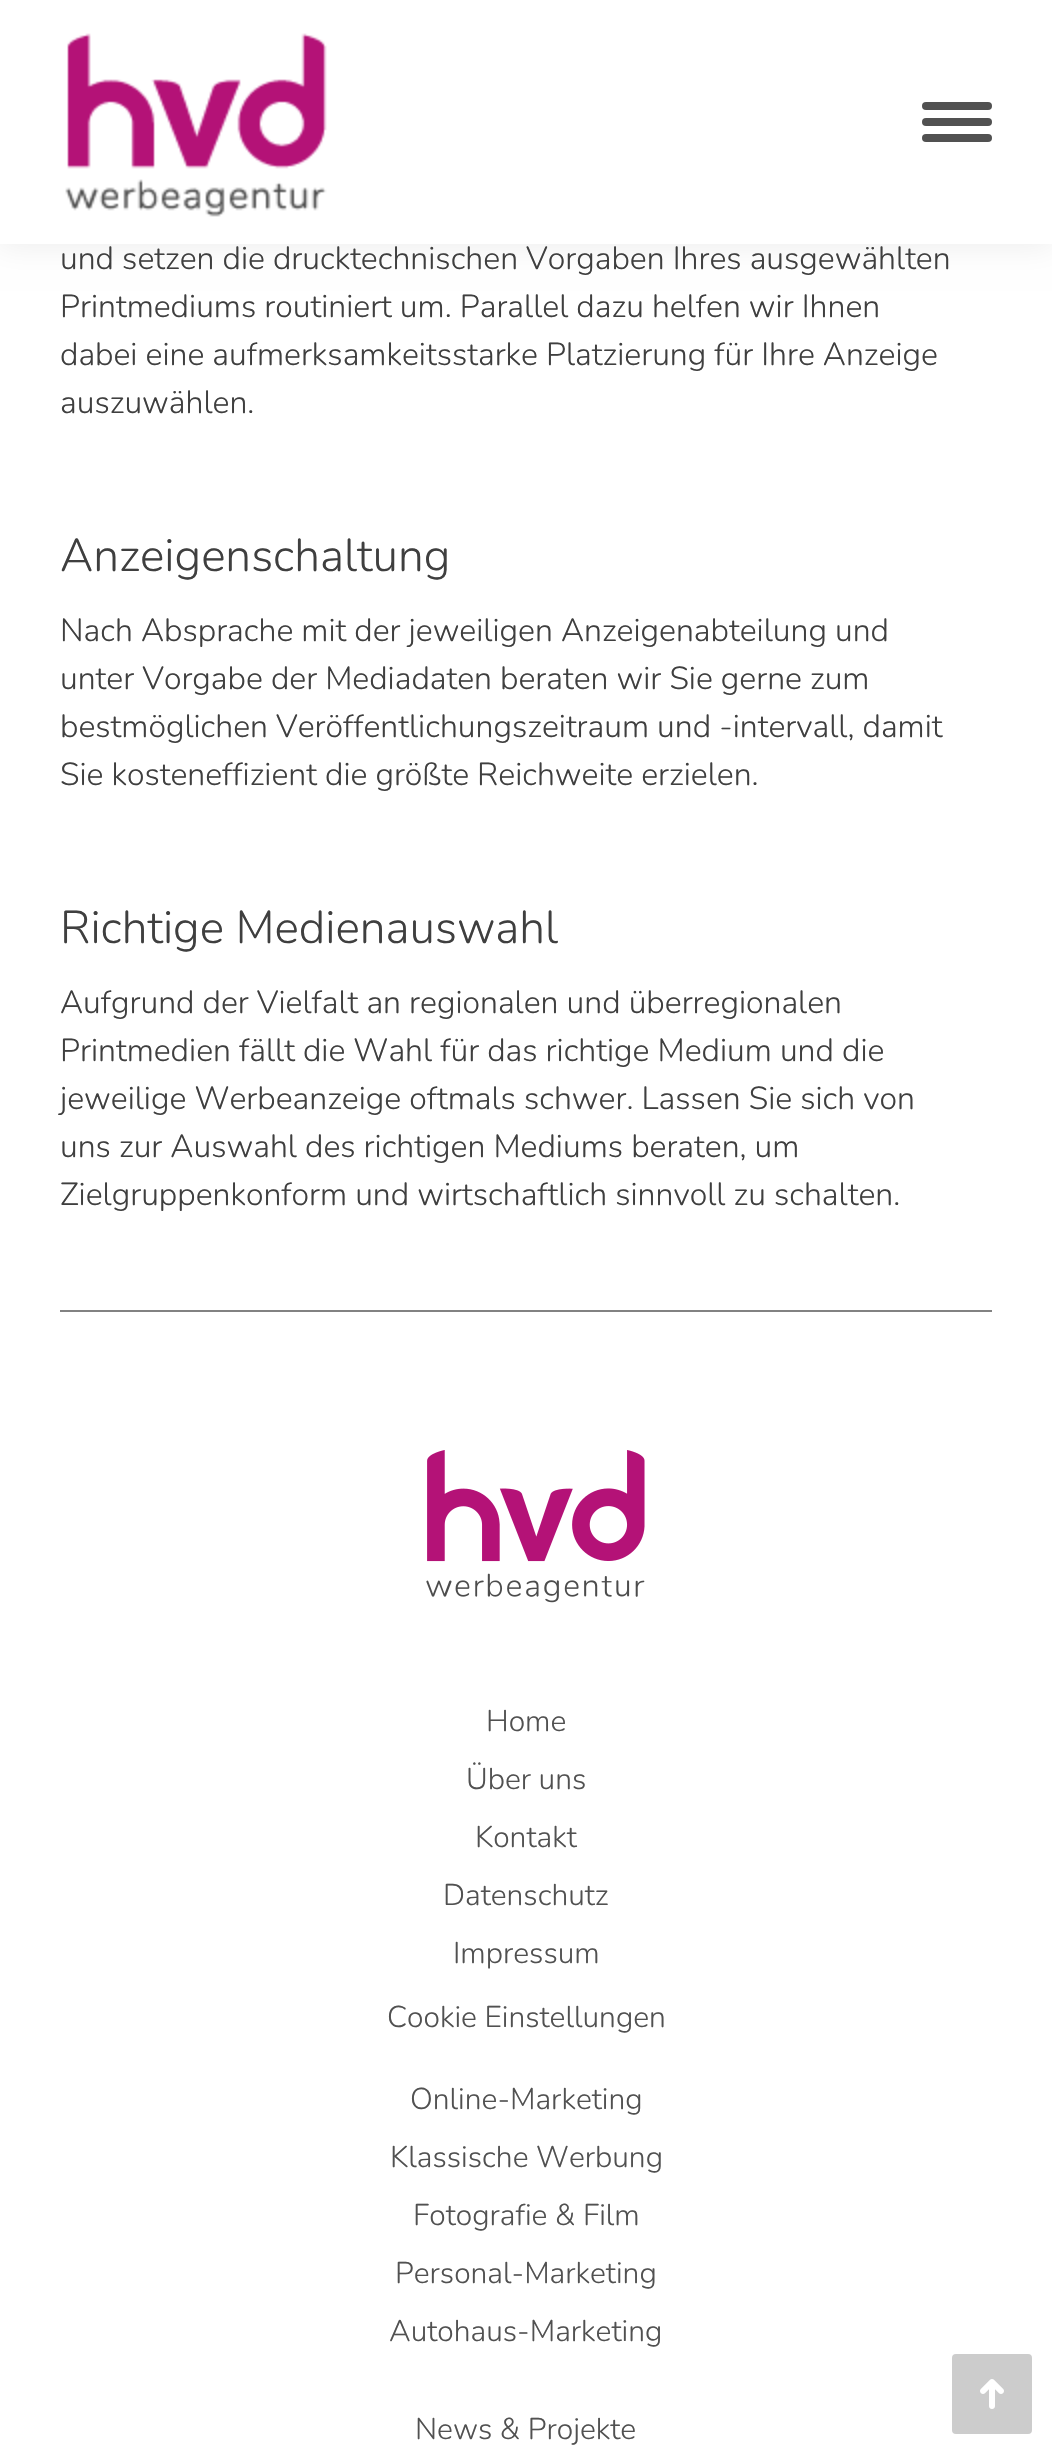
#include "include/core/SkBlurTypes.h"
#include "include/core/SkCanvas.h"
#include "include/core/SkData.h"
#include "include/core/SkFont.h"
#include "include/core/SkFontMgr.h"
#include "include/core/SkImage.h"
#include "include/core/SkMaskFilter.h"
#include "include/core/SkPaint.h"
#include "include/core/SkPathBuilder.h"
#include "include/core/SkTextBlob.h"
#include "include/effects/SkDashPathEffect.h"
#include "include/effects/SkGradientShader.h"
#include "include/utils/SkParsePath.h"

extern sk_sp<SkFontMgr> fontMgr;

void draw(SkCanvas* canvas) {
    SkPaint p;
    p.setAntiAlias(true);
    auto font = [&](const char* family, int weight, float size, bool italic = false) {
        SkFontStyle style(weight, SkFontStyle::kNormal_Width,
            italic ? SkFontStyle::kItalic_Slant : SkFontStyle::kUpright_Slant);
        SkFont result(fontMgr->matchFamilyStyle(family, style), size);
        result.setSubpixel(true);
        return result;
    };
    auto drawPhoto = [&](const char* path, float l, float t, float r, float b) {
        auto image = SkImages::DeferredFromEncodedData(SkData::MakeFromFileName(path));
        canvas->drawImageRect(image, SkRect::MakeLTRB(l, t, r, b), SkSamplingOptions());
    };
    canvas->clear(0xFFFFFFFF);
    p.setColor(0x12000000);
    p.setMaskFilter(SkMaskFilter::MakeBlur(kNormal_SkBlurStyle, 15));
    canvas->drawRect(SkRect::MakeLTRB(-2, -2, 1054, 246), p);
    p.setMaskFilter(nullptr);
    p.setColor(0xFFFFFFFF);
    canvas->drawRect(SkRect::MakeLTRB(0, 0, 1052, 244), p);
    drawPhoto("media/1.png", 65, 33, 327, 217);
    p.setColor(0xFF515151);
    canvas->drawRoundRect(SkRect::MakeLTRB(922, 102, 992, 110), 4, 4, p);
    canvas->drawRoundRect(SkRect::MakeLTRB(922, 118, 992, 126), 4, 4, p);
    canvas->drawRoundRect(SkRect::MakeLTRB(922, 134, 992, 142), 4, 4, p);
    auto font1 = font("Nunito", 300, 32);
    p.setColor(0xFF3F3F3F);
    {
        const struct { const char* s; float x, y; } items[] = {
            {"und setzen die drucktechnischen Vorgaben Ihres ausgewählten", 60, 269},
            {"Printmediums routiniert um. Parallel dazu helfen wir Ihnen", 60, 317},
            {"dabei eine aufmerksamkeitsstarke Platzierung für Ihre Anzeige", 60, 365},
            {"auszuwählen.", 60, 413},
        };
        for (auto [s, x, y] : items) {
            canvas->drawString(s, x, y, font1, p);
        }
    }
    auto font2 = font("Nunito", 300, 46);
    canvas->drawString("Anzeigenschaltung", 60, 571, font2, p);
    {
        const struct { const char* s; float x, y; } items[] = {
            {"Nach Absprache mit der jeweiligen Anzeigenabteilung und", 60, 641},
            {"unter Vorgabe der Mediadaten beraten wir Sie gerne zum", 60, 689},
            {"bestmöglichen Veröffentlichungszeitraum und -intervall, damit", 60, 737},
            {"Sie kosteneffizient die größte Reichweite erzielen.", 60, 785},
        };
        for (auto [s, x, y] : items) {
            canvas->drawString(s, x, y, font1, p);
        }
    }
    canvas->drawString("Richtige Medienauswahl", 60, 943, font2, p);
    {
        const struct { const char* s; float x, y; } items[] = {
            {"Aufgrund der Vielfalt an regionalen und überregionalen", 60, 1013},
            {"Printmedien fällt die Wahl für das richtige Medium und die", 60, 1061},
            {"jeweilige Werbeanzeige oftmals schwer. Lassen Sie sich von", 60, 1109},
            {"uns zur Auswahl des richtigen Mediums beraten, um", 60, 1157},
            {"Zielgruppenkonform und wirtschaftlich sinnvoll zu schalten.", 60, 1205},
        };
        for (auto [s, x, y] : items) {
            canvas->drawString(s, x, y, font1, p);
        }
    }
    p.setColor(0xFF828282);
    canvas->drawRect(SkRect::MakeLTRB(60, 1310, 992, 1312), p);
    drawPhoto("media/2.png", 426, 1450, 645, 1603);
    auto font3 = font("Nunito", 300, 30);
    p.setColor(0xFF515151);
    {
        const struct { const char* s; float x, y; } items[] = {
            {"Home", 486, 1731},
            {"Über uns", 466, 1789},
            {"Kontakt", 475, 1847},
            {"Datenschutz", 443, 1905},
            {"Impressum", 453, 1963},
            {"Cookie Einstellungen", 387, 2027},
            {"Online-Marketing", 410, 2109},
            {"Klassische Werbung", 390, 2167},
            {"Fotografie & Film", 413, 2225},
            {"Personal-Marketing", 395, 2283},
            {"Autohaus-Marketing", 389, 2341},
            {"News & Projekte", 415, 2439},
        };
        for (auto [s, x, y] : items) {
            canvas->drawString(s, x, y, font3, p);
        }
    }
    p.setColor(0xFFCCCCCC);
    canvas->drawRoundRect(SkRect::MakeLTRB(952, 2354, 1032, 2434), 4, 4, p);
    drawPhoto("media/3.png", 980, 2379, 1004, 2409);
}
